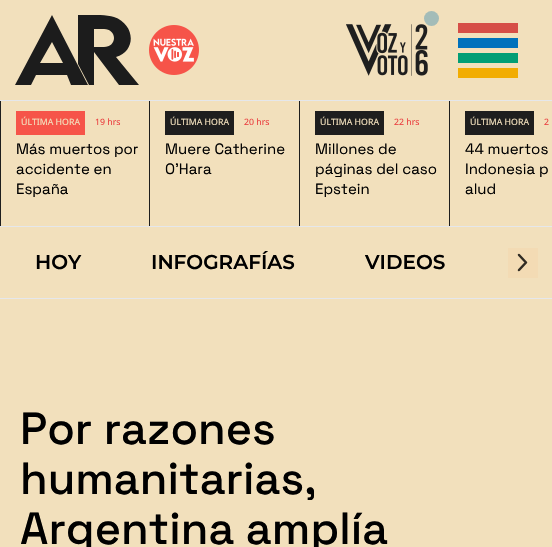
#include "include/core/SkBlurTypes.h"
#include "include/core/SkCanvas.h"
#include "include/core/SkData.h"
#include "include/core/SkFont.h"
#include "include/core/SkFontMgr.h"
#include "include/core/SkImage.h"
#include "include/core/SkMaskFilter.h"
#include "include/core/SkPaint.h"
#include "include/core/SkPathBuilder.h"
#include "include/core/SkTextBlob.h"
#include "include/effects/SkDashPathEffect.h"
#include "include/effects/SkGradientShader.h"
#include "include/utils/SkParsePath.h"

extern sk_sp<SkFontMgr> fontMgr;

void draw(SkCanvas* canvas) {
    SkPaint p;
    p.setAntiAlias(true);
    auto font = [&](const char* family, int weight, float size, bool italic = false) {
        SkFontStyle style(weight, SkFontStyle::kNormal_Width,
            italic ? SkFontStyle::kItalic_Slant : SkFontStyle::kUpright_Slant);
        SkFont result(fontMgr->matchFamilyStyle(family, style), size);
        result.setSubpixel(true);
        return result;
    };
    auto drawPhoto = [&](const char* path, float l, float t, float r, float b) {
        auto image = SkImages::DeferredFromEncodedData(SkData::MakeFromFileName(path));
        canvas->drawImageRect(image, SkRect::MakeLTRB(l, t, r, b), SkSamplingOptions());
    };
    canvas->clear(0xFFF2E0BC);
    p.setColor(0xFFE5E7EB);
    canvas->drawRect(SkRect::MakeLTRB(0, 100, 552, 101), p);
    canvas->save();
    canvas->clipRect(SkRect::MakeLTRB(15, 15, 139, 85));
    p.setColor(0xFF1C1C1C);
    canvas->drawPath(SkPathBuilder().moveTo(119, 85).lineTo(94, 52).lineTo(94, 85).lineTo(89, 85).lineTo(78, 64).lineTo(78, 15).cubicTo(88, 15, 105, 14, 114, 17).cubicTo(135, 24, 137, 51, 116, 57).lineTo(139, 85).close().moveTo(94, 47).lineTo(104, 47).cubicTo(110, 47, 114, 43, 114, 38).cubicTo(114, 33, 110, 29, 104, 29).lineTo(94, 29).close().moveTo(67, 75).lineTo(36, 75).lineTo(31, 85).lineTo(15, 85).lineTo(52, 15).lineTo(88, 85).lineTo(71, 85).close().moveTo(63, 63).lineTo(52, 42).lineTo(40, 63).close().detach(), p);
    canvas->restore();
    drawPhoto("media/1.png", 149, 25, 199, 75);
    drawPhoto("media/2.png", 346, 24, 428, 76);
    p.setColor(0xFFA3BCB8);
    canvas->drawCircle(431.5f, 18.5f, 7.5f, p);
    {
        const struct { float l, t, r, b; SkColor color; } items[] = {
            {458, 23, 518, 33, 0xFFD64E47},
            {458, 38, 518, 48, 0xFF0071BC},
            {458, 53, 518, 63, 0xFF029E75},
            {458, 68, 518, 78, 0xFFF2AD03},
            {0, 226, 552, 227, 0xFFE5E7EB},
            {149, 101, 150, 226, 0xFF1E1E1E},
            {0, 101, 1, 226, 0xFF1E1E1E},
            {16, 111, 85, 135, 0xFFF65449},
        };
        for (auto [l, t, r, b, color] : items) {
            p.setColor(color);
            canvas->drawRect(SkRect::MakeLTRB(l, t, r, b), p);
        }
    }
    auto font1 = font("Noto Sans", 400, 8.75f);
    p.setColor(0xFFF2E0BC);
    canvas->drawString("ÚLTIMA HORA", 21, 125, font1, p);
    p.setColor(0xFFEB3F3F);
    canvas->drawString("19 hrs", 95, 125, font1, p);
    auto font2 = font("Space Grotesk", 400, 15);
    p.setColor(0xFF000000);
    {
        const struct { const char* s; float x, y; } items[] = {
            {"Más muertos por", 16, 154},
            {"accidente en", 16, 174},
            {"España", 16, 194},
        };
        for (auto [s, x, y] : items) {
            canvas->drawString(s, x, y, font2, p);
        }
    }
    p.setColor(0xFF1E1E1E);
    canvas->drawRect(SkRect::MakeLTRB(299, 101, 300, 226), p);
    canvas->drawRect(SkRect::MakeLTRB(165, 111, 234, 135), p);
    p.setColor(0xFFF2E0BC);
    canvas->drawString("ÚLTIMA HORA", 170, 125, font1, p);
    p.setColor(0xFFEB3F3F);
    canvas->drawString("20 hrs", 244, 125, font1, p);
    p.setColor(0xFF000000);
    canvas->drawString("Muere Catherine", 165, 154, font2, p);
    canvas->drawString("O'Hara", 165, 174, font2, p);
    p.setColor(0xFF1E1E1E);
    canvas->drawRect(SkRect::MakeLTRB(449, 101, 450, 226), p);
    canvas->drawRect(SkRect::MakeLTRB(315, 111, 384, 135), p);
    p.setColor(0xFFF2E0BC);
    canvas->drawString("ÚLTIMA HORA", 320, 125, font1, p);
    p.setColor(0xFFEB3F3F);
    canvas->drawString("22 hrs", 394, 125, font1, p);
    p.setColor(0xFF000000);
    {
        const struct { const char* s; float x, y; } items[] = {
            {"Millones de", 315, 154},
            {"páginas del caso", 315, 174},
            {"Epstein", 315, 194},
        };
        for (auto [s, x, y] : items) {
            canvas->drawString(s, x, y, font2, p);
        }
    }
    p.setColor(0xFF1E1E1E);
    canvas->drawRect(SkRect::MakeLTRB(465, 111, 534, 135), p);
    p.setColor(0xFFF2E0BC);
    canvas->drawString("ÚLTIMA HORA", 470, 125, font1, p);
    p.setColor(0xFFEB3F3F);
    canvas->drawString("2", 544, 125, font1, p);
    p.setColor(0xFF000000);
    {
        const struct { const char* s; float x, y; } items[] = {
            {"44 muertos", 465, 154},
            {"Indonesia p", 465, 174},
            {"alud", 465, 194},
        };
        for (auto [s, x, y] : items) {
            canvas->drawString(s, x, y, font2, p);
        }
    }
    p.setColor(0xFFE5E7EB);
    canvas->drawRect(SkRect::MakeLTRB(0, 298, 552, 299), p);
    auto font3 = font("Montserrat", 100, 20);
    p.setColor(0xFF000000);
    {
        const struct { const char* s; float x, y; } items[] = {
            {"HOY", 35, 269},
            {"INFOGRAFÍAS", 151, 269},
            {"VIDEOS", 365, 269},
        };
        for (auto [s, x, y] : items) {
            canvas->drawString(s, x, y, font3, p);
        }
    }
    p.setColor(0xCCF2D9B1);
    canvas->drawRect(SkRect::MakeLTRB(508, 248, 538, 278), p);
    p.setStyle(SkPaint::kStroke_Style);
    p.setStrokeWidth(2.5f);
    p.setStrokeCap(SkPaint::kRound_Cap);
    p.setStrokeJoin(SkPaint::kRound_Join);
    p.setColor(0xCC000000);
    canvas->drawPath(SkPathBuilder().moveTo(519, 270).lineTo(526, 262.5f).lineTo(519, 255).detach(), p);
    auto font4 = font("Space Grotesk", 500, 45);
    p.setStyle(SkPaint::kFill_Style);
    p.setColor(0xFF000000);
    {
        const struct { const char* s; float x, y; } items[] = {
            {"Por razones", 20, 444},
            {"humanitarias,", 20, 494},
            {"Argentina amplía", 20, 544},
        };
        for (auto [s, x, y] : items) {
            canvas->drawString(s, x, y, font4, p);
        }
    }
}
